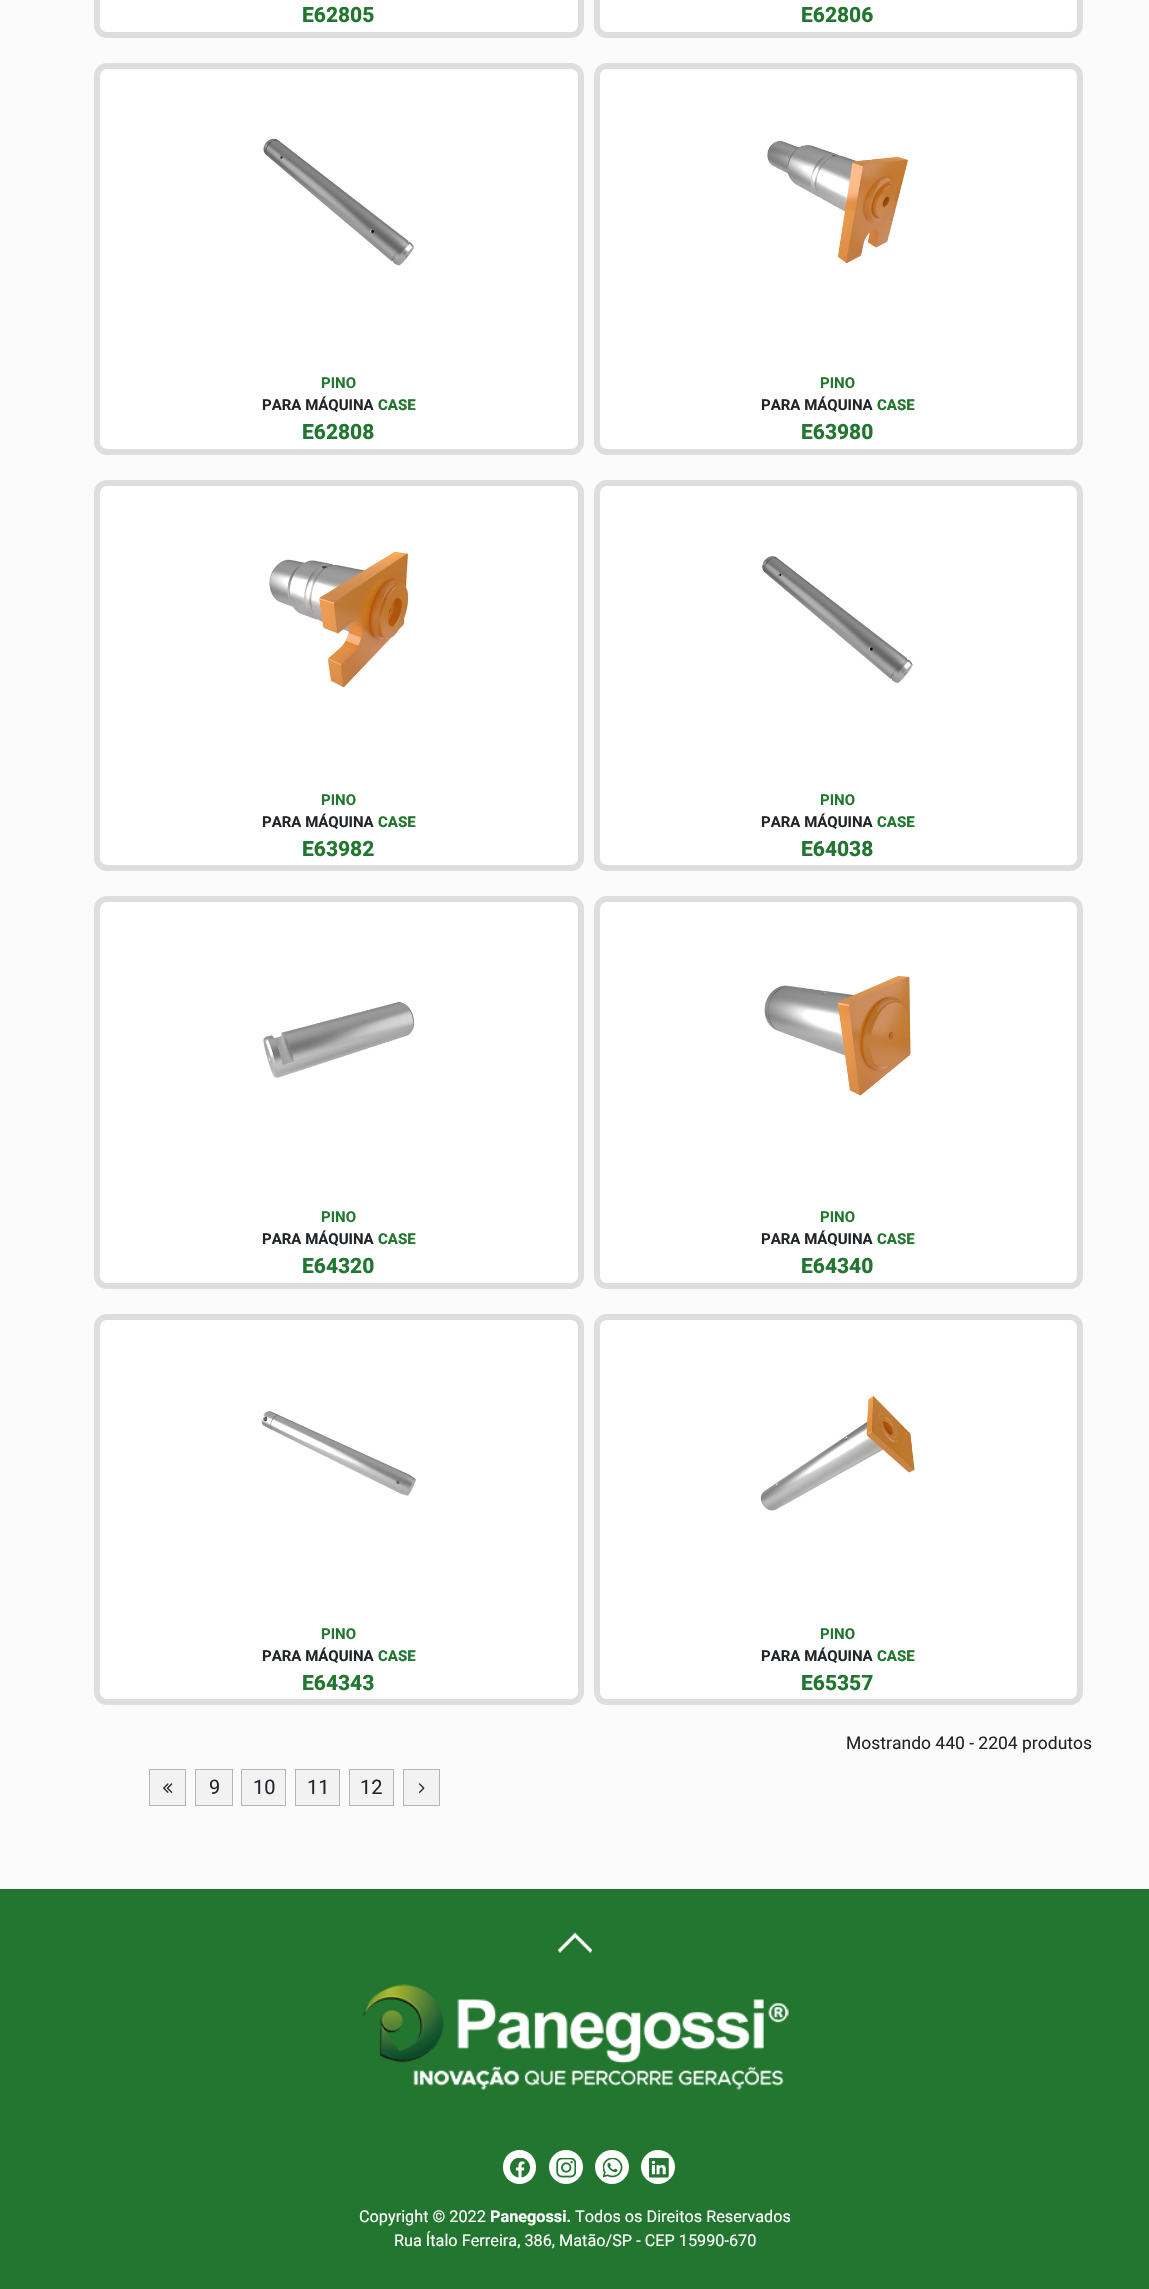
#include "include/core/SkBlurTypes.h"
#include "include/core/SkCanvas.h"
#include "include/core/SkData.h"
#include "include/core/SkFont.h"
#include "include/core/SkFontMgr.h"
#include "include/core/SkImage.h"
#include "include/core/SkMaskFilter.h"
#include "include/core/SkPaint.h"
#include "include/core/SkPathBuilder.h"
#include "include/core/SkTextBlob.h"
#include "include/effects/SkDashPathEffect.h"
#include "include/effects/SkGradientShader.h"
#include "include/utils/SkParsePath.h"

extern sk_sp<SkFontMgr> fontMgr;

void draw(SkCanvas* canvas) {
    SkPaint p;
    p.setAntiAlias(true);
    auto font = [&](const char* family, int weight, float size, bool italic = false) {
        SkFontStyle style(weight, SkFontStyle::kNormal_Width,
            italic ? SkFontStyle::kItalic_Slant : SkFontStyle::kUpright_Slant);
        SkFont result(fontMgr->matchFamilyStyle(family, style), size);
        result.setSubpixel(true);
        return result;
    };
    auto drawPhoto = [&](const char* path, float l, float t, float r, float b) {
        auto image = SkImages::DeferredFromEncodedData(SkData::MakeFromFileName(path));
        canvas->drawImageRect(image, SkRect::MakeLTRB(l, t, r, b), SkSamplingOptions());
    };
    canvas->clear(0xFFFBFBFB);
    p.setColor(0xFFFFFFFF);
    canvas->drawRoundRect(SkRect::MakeLTRB(97, -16, 581, 35), 10, 10, p);
    p.setStyle(SkPaint::kStroke_Style);
    p.setStrokeWidth(6);
    p.setColor(0xFFDEDEDF);
    canvas->drawRoundRect(SkRect::MakeLTRB(97, -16, 581, 35), 10, 10, p);
    auto font1 = font("Roboto", 800, 21);
    p.setStyle(SkPaint::kFill_Style);
    p.setColor(0xFF22762F);
    canvas->drawString("E62805", 302, 22, font1, p);
    p.setColor(0xFFFFFFFF);
    canvas->drawRoundRect(SkRect::MakeLTRB(597, -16, 1080, 35), 10, 10, p);
    p.setStyle(SkPaint::kStroke_Style);
    p.setColor(0xFFDEDEDF);
    canvas->drawRoundRect(SkRect::MakeLTRB(597, -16, 1080, 35), 10, 10, p);
    p.setStyle(SkPaint::kFill_Style);
    p.setColor(0xFF22762F);
    canvas->drawString("E62806", 801, 22, font1, p);
    p.setColor(0xFFFFFFFF);
    canvas->drawRoundRect(SkRect::MakeLTRB(97, 66, 581, 452), 10, 10, p);
    p.setStyle(SkPaint::kStroke_Style);
    p.setColor(0xFFDEDEDF);
    canvas->drawRoundRect(SkRect::MakeLTRB(97, 66, 581, 452), 10, 10, p);
    drawPhoto("media/1.png", 263, 138, 414, 266);
    auto font2 = font("Roboto", 700, 15);
    p.setStyle(SkPaint::kFill_Style);
    p.setColor(0xFF22762F);
    canvas->drawString("PINO", 321, 388, font2, p);
    p.setColor(0xFF212529);
    canvas->drawString("PARA MÁQUINA", 262, 410, font2, p);
    auto font3 = font("Roboto", 800, 15);
    p.setColor(0xFF22762F);
    canvas->drawString("CASE", 378, 410, font3, p);
    canvas->drawString("E62808", 302, 439, font1, p);
    p.setColor(0xFFFFFFFF);
    canvas->drawRoundRect(SkRect::MakeLTRB(597, 66, 1080, 452), 10, 10, p);
    p.setStyle(SkPaint::kStroke_Style);
    p.setColor(0xFFDEDEDF);
    canvas->drawRoundRect(SkRect::MakeLTRB(597, 66, 1080, 452), 10, 10, p);
    drawPhoto("media/2.png", 767, 141, 908, 264);
    p.setStyle(SkPaint::kFill_Style);
    p.setColor(0xFF22762F);
    canvas->drawString("PINO", 820, 388, font2, p);
    p.setColor(0xFF212529);
    canvas->drawString("PARA MÁQUINA", 761, 410, font2, p);
    p.setColor(0xFF22762F);
    canvas->drawString("CASE", 877, 410, font3, p);
    canvas->drawString("E63980", 801, 439, font1, p);
    p.setColor(0xFFFFFFFF);
    canvas->drawRoundRect(SkRect::MakeLTRB(97, 483, 581, 868), 10, 10, p);
    p.setStyle(SkPaint::kStroke_Style);
    p.setColor(0xFFDEDEDF);
    canvas->drawRoundRect(SkRect::MakeLTRB(97, 483, 581, 868), 10, 10, p);
    drawPhoto("media/3.png", 269, 551, 409, 689);
    p.setStyle(SkPaint::kFill_Style);
    p.setColor(0xFF22762F);
    canvas->drawString("PINO", 321, 805, font2, p);
    p.setColor(0xFF212529);
    canvas->drawString("PARA MÁQUINA", 262, 827, font2, p);
    p.setColor(0xFF22762F);
    canvas->drawString("CASE", 378, 827, font3, p);
    canvas->drawString("E63982", 302, 856, font1, p);
    p.setColor(0xFFFFFFFF);
    canvas->drawRoundRect(SkRect::MakeLTRB(597, 483, 1080, 868), 10, 10, p);
    p.setStyle(SkPaint::kStroke_Style);
    p.setColor(0xFFDEDEDF);
    canvas->drawRoundRect(SkRect::MakeLTRB(597, 483, 1080, 868), 10, 10, p);
    drawPhoto("media/4.png", 762, 556, 913, 684);
    p.setStyle(SkPaint::kFill_Style);
    p.setColor(0xFF22762F);
    canvas->drawString("PINO", 820, 805, font2, p);
    p.setColor(0xFF212529);
    canvas->drawString("PARA MÁQUINA", 761, 827, font2, p);
    p.setColor(0xFF22762F);
    canvas->drawString("CASE", 877, 827, font3, p);
    canvas->drawString("E64038", 801, 856, font1, p);
    p.setColor(0xFFFFFFFF);
    canvas->drawRoundRect(SkRect::MakeLTRB(97, 899, 581, 1286), 10, 10, p);
    p.setStyle(SkPaint::kStroke_Style);
    p.setColor(0xFFDEDEDF);
    canvas->drawRoundRect(SkRect::MakeLTRB(97, 899, 581, 1286), 10, 10, p);
    drawPhoto("media/5.png", 263, 1001, 415, 1078);
    p.setStyle(SkPaint::kFill_Style);
    p.setColor(0xFF22762F);
    canvas->drawString("PINO", 321, 1222, font2, p);
    p.setColor(0xFF212529);
    canvas->drawString("PARA MÁQUINA", 262, 1244, font2, p);
    p.setColor(0xFF22762F);
    canvas->drawString("CASE", 378, 1244, font3, p);
    canvas->drawString("E64320", 302, 1273, font1, p);
    p.setColor(0xFFFFFFFF);
    canvas->drawRoundRect(SkRect::MakeLTRB(597, 899, 1080, 1286), 10, 10, p);
    p.setStyle(SkPaint::kStroke_Style);
    p.setColor(0xFFDEDEDF);
    canvas->drawRoundRect(SkRect::MakeLTRB(597, 899, 1080, 1286), 10, 10, p);
    drawPhoto("media/6.png", 764, 975, 912, 1098);
    p.setStyle(SkPaint::kFill_Style);
    p.setColor(0xFF22762F);
    canvas->drawString("PINO", 820, 1222, font2, p);
    p.setColor(0xFF212529);
    canvas->drawString("PARA MÁQUINA", 761, 1244, font2, p);
    p.setColor(0xFF22762F);
    canvas->drawString("CASE", 877, 1244, font3, p);
    canvas->drawString("E64340", 801, 1273, font1, p);
    p.setColor(0xFFFFFFFF);
    canvas->drawRoundRect(SkRect::MakeLTRB(97, 1317, 581, 1702), 10, 10, p);
    p.setStyle(SkPaint::kStroke_Style);
    p.setColor(0xFFDEDEDF);
    canvas->drawRoundRect(SkRect::MakeLTRB(97, 1317, 581, 1702), 10, 10, p);
    drawPhoto("media/7.png", 261, 1411, 416, 1496);
    p.setStyle(SkPaint::kFill_Style);
    p.setColor(0xFF22762F);
    canvas->drawString("PINO", 321, 1639, font2, p);
    p.setColor(0xFF212529);
    canvas->drawString("PARA MÁQUINA", 262, 1661, font2, p);
    p.setColor(0xFF22762F);
    canvas->drawString("CASE", 378, 1661, font3, p);
    canvas->drawString("E64343", 302, 1690, font1, p);
    p.setColor(0xFFFFFFFF);
    canvas->drawRoundRect(SkRect::MakeLTRB(597, 1317, 1080, 1702), 10, 10, p);
    p.setStyle(SkPaint::kStroke_Style);
    p.setColor(0xFFDEDEDF);
    canvas->drawRoundRect(SkRect::MakeLTRB(597, 1317, 1080, 1702), 10, 10, p);
    drawPhoto("media/8.png", 760, 1394, 916, 1511);
    p.setStyle(SkPaint::kFill_Style);
    p.setColor(0xFF22762F);
    canvas->drawString("PINO", 820, 1639, font2, p);
    p.setColor(0xFF212529);
    canvas->drawString("PARA MÁQUINA", 761, 1661, font2, p);
    p.setColor(0xFF22762F);
    canvas->drawString("CASE", 877, 1661, font3, p);
    canvas->drawString("E65357", 801, 1690, font1, p);
    auto font4 = font("Roboto", 400, 17.5f);
    p.setColor(0xFF212529);
    canvas->drawString("Mostrando 440 - 2204 produtos", 846, 1749, font4, p);
    p.setColor(0xFFF2F2F2);
    canvas->drawRect(SkRect::MakeLTRB(149.5f, 1769.5f, 185.5f, 1805.5f), p);
    p.setStyle(SkPaint::kStroke_Style);
    p.setStrokeWidth(1);
    p.setColor(0xFFB6B6B6);
    canvas->drawRect(SkRect::MakeLTRB(149.5f, 1769.5f, 185.5f, 1805.5f), p);
    drawPhoto("media/9.png", 163, 1783, 173, 1793);
    p.setStyle(SkPaint::kFill_Style);
    p.setColor(0xFFF2F2F2);
    canvas->drawRect(SkRect::MakeLTRB(195.5f, 1769.5f, 232.5f, 1805.5f), p);
    p.setStyle(SkPaint::kStroke_Style);
    p.setColor(0xFFB6B6B6);
    canvas->drawRect(SkRect::MakeLTRB(195.5f, 1769.5f, 232.5f, 1805.5f), p);
    auto font5 = font("Roboto", 400, 20);
    p.setStyle(SkPaint::kFill_Style);
    p.setColor(0xFF212529);
    canvas->drawString("9", 209, 1794, font5, p);
    p.setColor(0xFFF2F2F2);
    canvas->drawRect(SkRect::MakeLTRB(241.5f, 1769.5f, 285.5f, 1805.5f), p);
    p.setStyle(SkPaint::kStroke_Style);
    p.setColor(0xFFB6B6B6);
    canvas->drawRect(SkRect::MakeLTRB(241.5f, 1769.5f, 285.5f, 1805.5f), p);
    p.setStyle(SkPaint::kFill_Style);
    p.setColor(0xFF212529);
    canvas->drawString("10", 253, 1794, font5, p);
    p.setColor(0xFFF2F2F2);
    canvas->drawRect(SkRect::MakeLTRB(295.5f, 1769.5f, 339.5f, 1805.5f), p);
    p.setStyle(SkPaint::kStroke_Style);
    p.setColor(0xFFB6B6B6);
    canvas->drawRect(SkRect::MakeLTRB(295.5f, 1769.5f, 339.5f, 1805.5f), p);
    p.setStyle(SkPaint::kFill_Style);
    p.setColor(0xFF212529);
    canvas->drawString("11", 307, 1794, font5, p);
    p.setColor(0xFFF2F2F2);
    canvas->drawRect(SkRect::MakeLTRB(349.5f, 1769.5f, 393.5f, 1805.5f), p);
    p.setStyle(SkPaint::kStroke_Style);
    p.setColor(0xFFB6B6B6);
    canvas->drawRect(SkRect::MakeLTRB(349.5f, 1769.5f, 393.5f, 1805.5f), p);
    p.setStyle(SkPaint::kFill_Style);
    p.setColor(0xFF212529);
    canvas->drawString("12", 360, 1794, font5, p);
    p.setColor(0xFFF2F2F2);
    canvas->drawRect(SkRect::MakeLTRB(403.5f, 1769.5f, 439.5f, 1805.5f), p);
    p.setStyle(SkPaint::kStroke_Style);
    p.setColor(0xFFB6B6B6);
    canvas->drawRect(SkRect::MakeLTRB(403.5f, 1769.5f, 439.5f, 1805.5f), p);
    drawPhoto("media/10.png", 418, 1783, 425, 1793);
    p.setStyle(SkPaint::kFill_Style);
    p.setColor(0xFF22762F);
    canvas->drawRect(SkRect::MakeLTRB(0, 1889, 1149, 2289), p);
    drawPhoto("media/11.png", 558, 1932, 592, 1953);
    drawPhoto("media/12.png", 362, 1984, 789, 2090);
    p.setColor(0xFFFFFFFF);
    canvas->drawRoundRect(SkRect::MakeLTRB(503, 2150, 536, 2184), 16.5f, 16.5f, p);
    drawPhoto("media/13.png", 510, 2158, 530, 2178);
    canvas->drawCircle(566, 2167, 17, p);
    drawPhoto("media/14.png", 556, 2158, 576, 2178);
    canvas->drawCircle(612, 2167, 17, p);
    drawPhoto("media/15.png", 603, 2158, 623, 2178);
    canvas->drawCircle(658, 2167, 17, p);
    drawPhoto("media/16.png", 649, 2158, 669, 2178);
    auto font6 = font("Roboto", 400, 16.25f);
    canvas->drawString("Copyright © 2022", 359, 2222, font6, p);
    auto font7 = font("Roboto", 700, 16.25f);
    canvas->drawString("Panegossi.", 490, 2222, font7, p);
    canvas->drawString("Todos os Direitos Reservados", 575, 2222, font6, p);
    canvas->drawString("Rua Ítalo Ferreira, 386, Matão/SP - CEP 15990-670", 394, 2246, font6, p);
}
